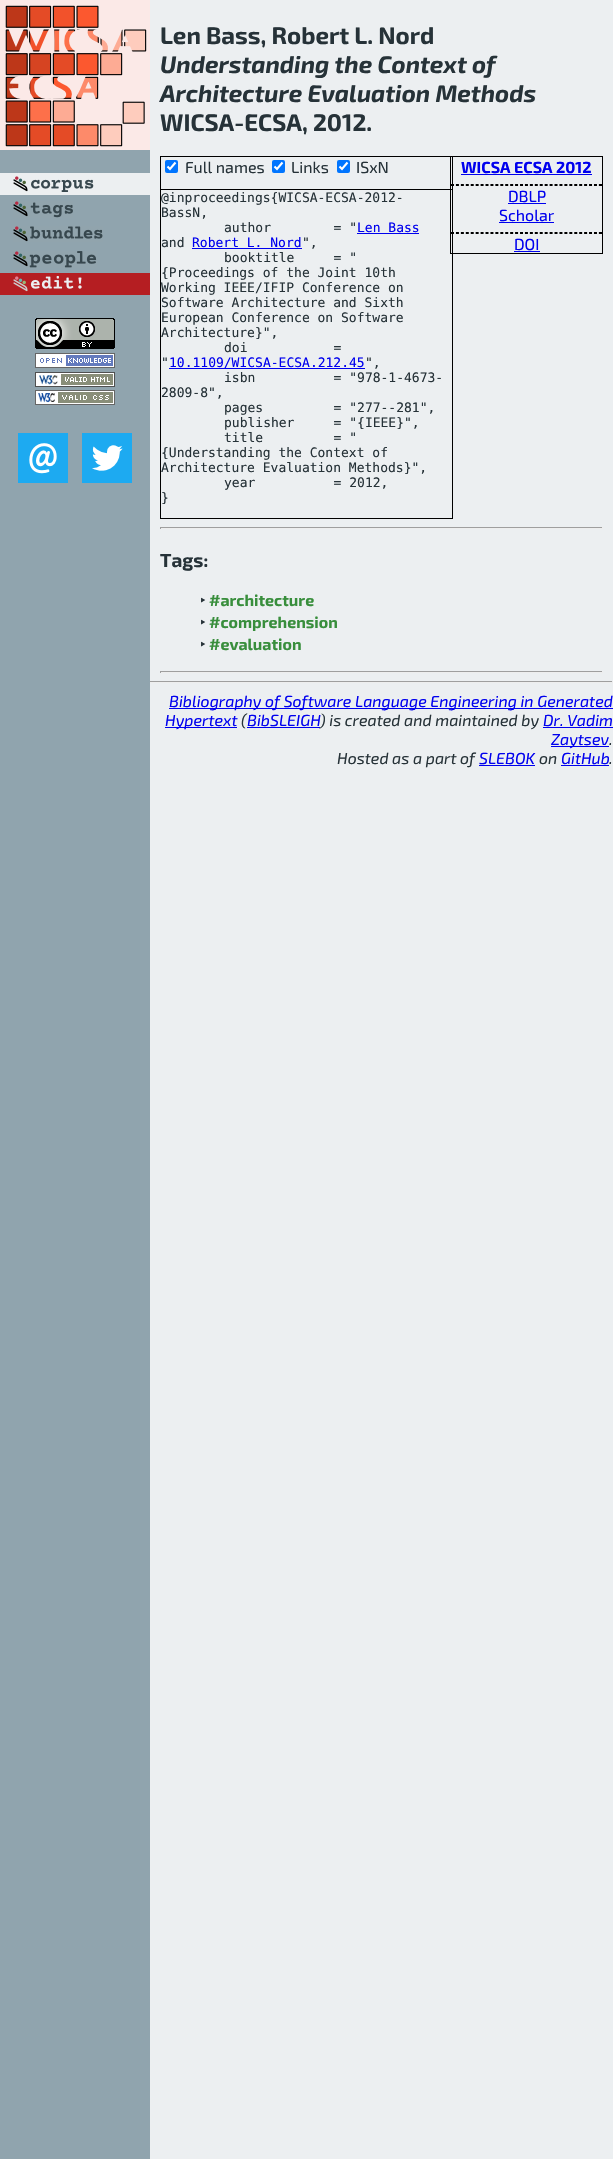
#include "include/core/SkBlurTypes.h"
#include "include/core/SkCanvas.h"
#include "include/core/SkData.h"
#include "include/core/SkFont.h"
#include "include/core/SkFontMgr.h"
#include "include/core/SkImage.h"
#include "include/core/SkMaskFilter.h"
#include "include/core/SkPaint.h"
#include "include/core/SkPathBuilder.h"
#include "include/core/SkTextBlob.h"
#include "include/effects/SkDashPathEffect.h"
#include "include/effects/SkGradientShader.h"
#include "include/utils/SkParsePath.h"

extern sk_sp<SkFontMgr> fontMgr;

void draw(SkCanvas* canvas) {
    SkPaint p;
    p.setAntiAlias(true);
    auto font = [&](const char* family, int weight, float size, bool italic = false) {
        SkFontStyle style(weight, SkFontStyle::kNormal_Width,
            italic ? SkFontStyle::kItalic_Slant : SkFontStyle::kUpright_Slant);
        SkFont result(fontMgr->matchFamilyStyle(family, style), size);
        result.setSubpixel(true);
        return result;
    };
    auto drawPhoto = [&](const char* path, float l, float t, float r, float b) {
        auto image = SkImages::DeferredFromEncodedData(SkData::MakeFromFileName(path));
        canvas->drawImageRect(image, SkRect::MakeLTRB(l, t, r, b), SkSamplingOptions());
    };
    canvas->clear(0xFFECEFF1);
    p.setColor(0xFF90A4AE);
    canvas->drawRect(SkRect::MakeLTRB(0, 150, 150, 2159), p);
    drawPhoto("media/1.png", 0, 0, 150, 150);
    drawPhoto("media/2.png", 0, 173, 150, 195);
    drawPhoto("media/3.png", 13, 201, 73, 218);
    drawPhoto("media/4.png", 13, 226, 103, 242);
    drawPhoto("media/5.png", 13, 251, 97, 268);
    drawPhoto("media/6.png", 0, 273, 150, 295);
    drawPhoto("media/7.png", 35, 318, 115, 349);
    drawPhoto("media/8.png", 35, 353, 115, 368);
    drawPhoto("media/9.png", 35, 372, 115, 387);
    drawPhoto("media/10.png", 35, 390, 115, 405);
    drawPhoto("media/11.png", 18, 433, 68, 483);
    drawPhoto("media/12.png", 82, 433, 132, 483);
    auto font1 = font("Exo 2", 700, 24);
    p.setColor(0xFF263238);
    canvas->drawString("Len Bass, Robert L. Nord", 160, 44, font1, p);
    auto font2 = font("Exo 2", 700, 24, true);
    canvas->drawString("Understanding the Context of", 160, 73, font2, p);
    canvas->drawString("Architecture Evaluation Methods", 160, 102, font2, p);
    canvas->drawString("WICSA-ECSA, 2012.", 160, 131, font1, p);
    p.setStyle(SkPaint::kStroke_Style);
    p.setStrokeWidth(1);
    p.setColor(0xFF000000);
    canvas->drawRect(SkRect::MakeLTRB(160.5f, 156.5f, 452.5f, 518.5f), p);
    p.setStyle(SkPaint::kFill_Style);
    p.setColor(0xFF0075FF);
    canvas->drawRoundRect(SkRect::MakeLTRB(165, 160, 178, 173), 2, 2, p);
    p.setStyle(SkPaint::kStroke_Style);
    p.setStrokeWidth(2.1f);
    p.setColor(0xFFFFFFFF);
    canvas->drawPath(SkPathBuilder().moveTo(167.5f, 166.5f).lineTo(170, 169).lineTo(175.5f, 162.5f).detach(), p);
    auto font3 = font("Exo 2", 400, 16);
    p.setStyle(SkPaint::kFill_Style);
    p.setColor(0xFF263238);
    canvas->drawString("Full names", 185, 173, font3, p);
    p.setColor(0xFF0075FF);
    canvas->drawRoundRect(SkRect::MakeLTRB(272, 160, 285, 173), 2, 2, p);
    p.setStyle(SkPaint::kStroke_Style);
    p.setColor(0xFFFFFFFF);
    canvas->drawPath(SkPathBuilder().moveTo(274.5f, 166.5f).lineTo(277, 169).lineTo(282.5f, 162.5f).detach(), p);
    p.setStyle(SkPaint::kFill_Style);
    p.setColor(0xFF263238);
    canvas->drawString("Links", 291, 173, font3, p);
    p.setColor(0xFF0075FF);
    canvas->drawRoundRect(SkRect::MakeLTRB(337, 160, 350, 173), 2, 2, p);
    p.setStyle(SkPaint::kStroke_Style);
    p.setColor(0xFFFFFFFF);
    canvas->drawPath(SkPathBuilder().moveTo(339.5f, 166.5f).lineTo(342, 169).lineTo(347.5f, 162.5f).detach(), p);
    p.setStyle(SkPaint::kFill_Style);
    p.setColor(0xFF263238);
    canvas->drawString("ISxN", 356, 173, font3, p);
    p.setColor(0xFF000000);
    canvas->drawRect(SkRect::MakeLTRB(161, 189, 452, 190), p);
    auto font4 = font("DejaVu Sans Mono", 400, 13);
    p.setColor(0xFF263238);
    {
        const struct { const char* s; float x, y; } items[] = {
            {"@inproceedings{WICSA-ECSA-2012-", 161, 202},
            {"BassN,", 161, 217},
            {"author        = \"", 224, 232},
        };
        for (auto [s, x, y] : items) {
            canvas->drawString(s, x, y, font4, p);
        }
    }
    p.setColor(0xFF0000EE);
    canvas->drawString("Len Bass", 357, 232, font4, p);
    canvas->drawRect(SkRect::MakeLTRB(357, 233, 419, 234), p);
    p.setColor(0xFF263238);
    canvas->drawString("and", 161, 247, font4, p);
    p.setColor(0xFF0000EE);
    canvas->drawString("Robert L. Nord", 192, 247, font4, p);
    canvas->drawRect(SkRect::MakeLTRB(192, 248, 302, 249), p);
    p.setColor(0xFF263238);
    {
        const struct { const char* s; float x, y; } items[] = {
            {"\",", 302, 247},
            {"booktitle     = \"", 224, 262},
            {"{Proceedings of the Joint 10th", 161, 277},
            {"Working IEEE/IFIP Conference on", 161, 292},
            {"Software Architecture and Sixth", 161, 307},
            {"European Conference on Software", 161, 322},
            {"Architecture}\",", 161, 337},
            {"doi           =", 224, 352},
            {"\"", 161, 367},
        };
        for (auto [s, x, y] : items) {
            canvas->drawString(s, x, y, font4, p);
        }
    }
    p.setColor(0xFF0000EE);
    canvas->drawRect(SkRect::MakeLTRB(169, 368, 365, 369), p);
    canvas->drawString("10.1109/WICSA-ECSA.212.45", 169, 367, font4, p);
    p.setColor(0xFF263238);
    {
        const struct { const char* s; float x, y; } items[] = {
            {"\",", 365, 367},
            {"isbn          = \"978-1-4673-", 224, 382},
            {"2809-8\",", 161, 397},
            {"pages         = \"277--281\",", 224, 412},
            {"publisher     = \"{IEEE}\",", 224, 427},
            {"title         = \"", 224, 442},
            {"{Understanding the Context of", 161, 457},
            {"Architecture Evaluation Methods}\",", 161, 472},
            {"year          = 2012,", 224, 487},
            {"}", 161, 502},
        };
        for (auto [s, x, y] : items) {
            canvas->drawString(s, x, y, font4, p);
        }
    }
    p.setStyle(SkPaint::kStroke_Style);
    p.setStrokeWidth(1);
    p.setColor(0xFF000000);
    canvas->drawRect(SkRect::MakeLTRB(450.5f, 156.5f, 602.5f, 253.5f), p);
    auto font5 = font("Exo 2", 700, 16);
    p.setStyle(SkPaint::kFill_Style);
    p.setColor(0xFF0000EE);
    canvas->drawString("WICSA ECSA 2012", 461, 173, font5, p);
    canvas->drawRect(SkRect::MakeLTRB(461, 174, 592, 175), p);
    p.setStyle(SkPaint::kStroke_Style);
    p.setColor(0xFF000000);
    p.setPathEffect(SkDashPathEffect::Make({{3, 1.93f}}, 0));
    canvas->drawPath(SkPathBuilder().moveTo(451, 184.5f).lineTo(602, 184.5f).detach(), p);
    p.setPathEffect(nullptr);
    p.setStyle(SkPaint::kFill_Style);
    canvas->drawRect(SkRect::MakeLTRB(601, 184, 602, 186), p);
    p.setStyle(SkPaint::kStroke_Style);
    p.setPathEffect(SkDashPathEffect::Make({{3, 1.93f}}, 0));
    canvas->drawPath(SkPathBuilder().moveTo(451, 185.5f).lineTo(602, 185.5f).detach(), p);
    p.setPathEffect(nullptr);
    p.setStyle(SkPaint::kFill_Style);
    p.setColor(0xFF0000EE);
    canvas->drawString("DBLP", 508, 202, font3, p);
    canvas->drawRect(SkRect::MakeLTRB(508, 203, 546, 204), p);
    canvas->drawString("Scholar", 499, 221, font3, p);
    canvas->drawRect(SkRect::MakeLTRB(499, 222, 554, 223), p);
    p.setStyle(SkPaint::kStroke_Style);
    p.setColor(0xFF000000);
    p.setPathEffect(SkDashPathEffect::Make({{3, 1.93f}}, 0));
    canvas->drawPath(SkPathBuilder().moveTo(451, 232.5f).lineTo(602, 232.5f).detach(), p);
    p.setPathEffect(nullptr);
    p.setStyle(SkPaint::kFill_Style);
    canvas->drawRect(SkRect::MakeLTRB(601, 232, 602, 234), p);
    p.setStyle(SkPaint::kStroke_Style);
    p.setPathEffect(SkDashPathEffect::Make({{3, 1.93f}}, 0));
    canvas->drawPath(SkPathBuilder().moveTo(451, 233.5f).lineTo(602, 233.5f).detach(), p);
    p.setPathEffect(nullptr);
    p.setStyle(SkPaint::kFill_Style);
    p.setColor(0xFF0000EE);
    canvas->drawString("DOI", 514, 250, font3, p);
    {
        const struct { float l, t, r, b; SkColor color; } items[] = {
            {514, 251, 540, 252, 0xFF0000EE},
            {160, 527, 603, 528, 0xFF9F9F9F},
            {602, 527, 603, 529, 0xFFEEEEEE},
            {160, 528, 603, 529, 0xFFEEEEEE},
            {160, 527, 161, 529, 0xFF9F9F9F},
        };
        for (auto [l, t, r, b, color] : items) {
            p.setColor(color);
            canvas->drawRect(SkRect::MakeLTRB(l, t, r, b), p);
        }
    }
    auto font6 = font("Exo 2", 700, 19);
    p.setColor(0xFF263238);
    canvas->drawString("Tags:", 160, 567, font6, p);
    auto font7 = font("Noto Sans", 400, 16);
    canvas->drawString("‣", 200, 606, font7, p);
    p.setColor(0xFF388E3C);
    canvas->drawString("#architecture", 209, 606, font5, p);
    p.setColor(0xFF263238);
    canvas->drawString("‣", 200, 628, font7, p);
    p.setColor(0xFF388E3C);
    canvas->drawString("#comprehension", 209, 628, font5, p);
    p.setColor(0xFF263238);
    canvas->drawString("‣", 200, 650, font7, p);
    p.setColor(0xFF388E3C);
    canvas->drawString("#evaluation", 209, 650, font5, p);
    {
        const struct { float l, t, r, b; SkColor color; } items[] = {
            {160, 671, 603, 672, 0xFF9F9F9F},
            {602, 671, 603, 673, 0xFFEEEEEE},
            {160, 672, 603, 673, 0xFFEEEEEE},
            {160, 671, 161, 673, 0xFF9F9F9F},
            {150, 681, 613, 682, 0xFF9F9F9F},
            {612, 681, 613, 683, 0xFFEEEEEE},
            {150, 682, 613, 683, 0xFFEEEEEE},
            {169, 708, 613, 709, 0xFF0000EE},
        };
        for (auto [l, t, r, b, color] : items) {
            p.setColor(color);
            canvas->drawRect(SkRect::MakeLTRB(l, t, r, b), p);
        }
    }
    auto font8 = font("Exo 2", 400, 16, true);
    canvas->drawString("Bibliography of Software Language Engineering in Generated", 169, 707, font8, p);
    canvas->drawRect(SkRect::MakeLTRB(165, 727, 237, 728), p);
    canvas->drawString("Hypertext", 165, 726, font8, p);
    p.setColor(0xFF263238);
    canvas->drawString("(", 241, 726, font8, p);
    p.setColor(0xFF0000EE);
    canvas->drawString("BibSLEIGH", 247, 726, font8, p);
    canvas->drawRect(SkRect::MakeLTRB(247, 727, 320, 728), p);
    p.setColor(0xFF263238);
    canvas->drawString(") is created and maintained by", 320, 726, font8, p);
    p.setColor(0xFF0000EE);
    canvas->drawString("Dr. Vadim", 543, 726, font8, p);
    canvas->drawRect(SkRect::MakeLTRB(543, 727, 613, 728), p);
    canvas->drawRect(SkRect::MakeLTRB(551, 746, 609, 747), p);
    canvas->drawString("Zaytsev", 551, 745, font8, p);
    p.setColor(0xFF263238);
    canvas->drawString(".", 609, 745, font8, p);
    canvas->drawString("Hosted as a part of", 337, 764, font8, p);
    p.setColor(0xFF0000EE);
    canvas->drawRect(SkRect::MakeLTRB(479, 765, 535, 766), p);
    canvas->drawString("SLEBOK", 479, 764, font8, p);
    p.setColor(0xFF263238);
    canvas->drawString("on", 539, 764, font8, p);
    p.setColor(0xFF0000EE);
    canvas->drawString("GitHub", 561, 764, font8, p);
    p.setColor(0xFF263238);
    canvas->drawString(".", 609, 764, font8, p);
    p.setColor(0xFF0000EE);
    canvas->drawRect(SkRect::MakeLTRB(561, 765, 609, 766), p);
}
